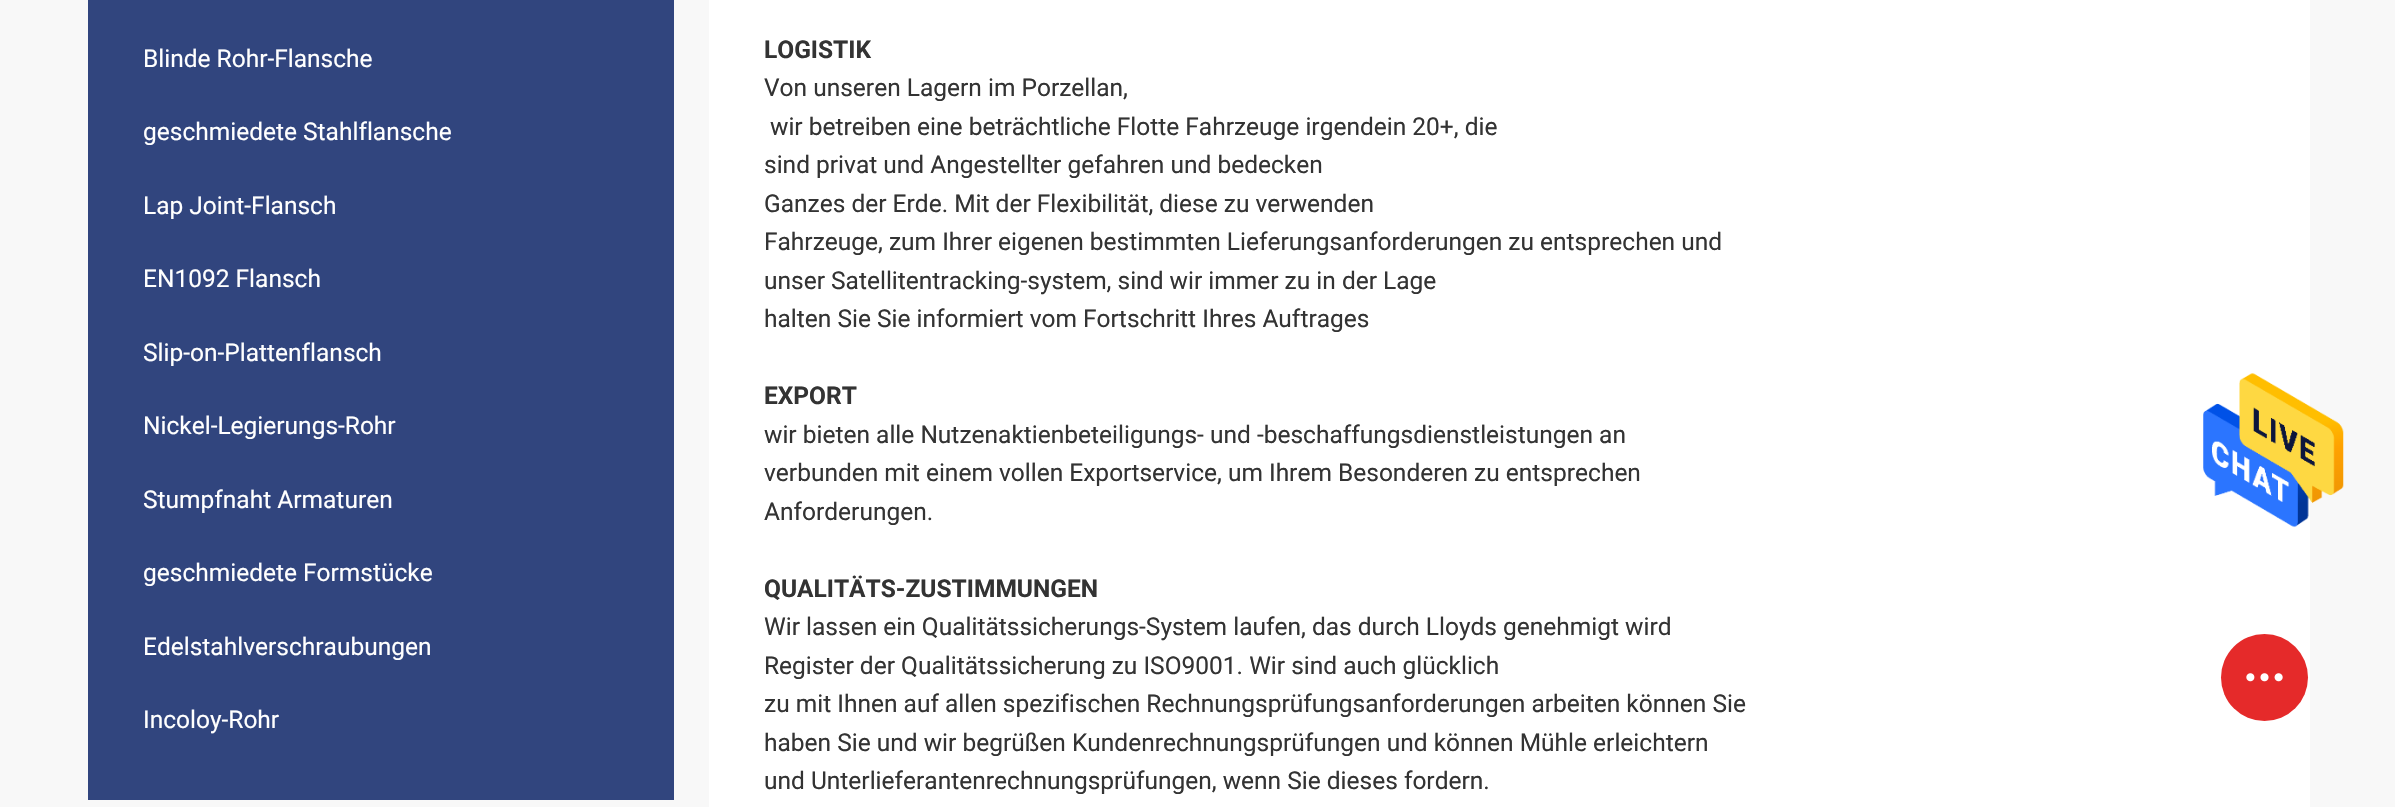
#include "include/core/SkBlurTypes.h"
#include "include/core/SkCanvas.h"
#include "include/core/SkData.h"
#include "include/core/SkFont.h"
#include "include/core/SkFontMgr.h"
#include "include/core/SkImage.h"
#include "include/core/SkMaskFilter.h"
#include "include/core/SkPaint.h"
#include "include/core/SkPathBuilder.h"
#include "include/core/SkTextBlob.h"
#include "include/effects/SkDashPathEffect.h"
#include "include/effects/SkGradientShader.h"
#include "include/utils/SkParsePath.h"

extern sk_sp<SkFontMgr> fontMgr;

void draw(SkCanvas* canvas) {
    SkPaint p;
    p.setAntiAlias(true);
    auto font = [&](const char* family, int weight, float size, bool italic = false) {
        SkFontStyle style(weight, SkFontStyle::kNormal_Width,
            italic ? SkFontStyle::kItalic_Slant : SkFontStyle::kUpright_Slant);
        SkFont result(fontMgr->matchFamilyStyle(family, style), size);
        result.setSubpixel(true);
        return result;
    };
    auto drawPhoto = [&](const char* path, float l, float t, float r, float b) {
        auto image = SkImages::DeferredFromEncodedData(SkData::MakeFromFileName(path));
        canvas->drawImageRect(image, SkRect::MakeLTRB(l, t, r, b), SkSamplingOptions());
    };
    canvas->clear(0xFFF8F8F8);
    p.setColor(0xFF31457E);
    canvas->drawRect(SkRect::MakeLTRB(88, 0, 674, 800), p);
    auto font1 = font("Roboto", 400, 24.5f);
    p.setColor(0xFFFFFFFF);
    {
        const struct { const char* s; float x, y; } items[] = {
            {"Blinde Rohr-Flansche", 143, 67},
            {"geschmiedete Stahlflansche", 143, 140},
            {"Lap Joint-Flansch", 143, 214},
            {"EN1092 Flansch", 143, 287},
            {"Slip-on-Plattenflansch", 143, 361},
            {"Nickel-Legierungs-Rohr", 143, 434},
            {"Stumpfnaht Armaturen", 143, 508},
            {"geschmiedete Formstücke", 143, 581},
            {"Edelstahlverschraubungen", 143, 655},
            {"Incoloy-Rohr", 143, 728},
        };
        for (auto [s, x, y] : items) {
            canvas->drawString(s, x, y, font1, p);
        }
    }
    canvas->drawRect(SkRect::MakeLTRB(709, 0, 2310, 807), p);
    auto font2 = font("Roboto", 700, 24.5f);
    p.setColor(0xFF333333);
    canvas->drawString("LOGISTIK", 764, 58, font2, p);
    {
        const struct { const char* s; float x, y; } items[] = {
            {"Von unseren Lagern im Porzellan,", 764, 96},
            {"wir betreiben eine beträchtliche Flotte Fahrzeuge irgendein 20+, die", 770, 135},
            {"sind privat und Angestellter gefahren und bedecken", 764, 173},
            {"Ganzes der Erde. Mit der Flexibilität, diese zu verwenden", 764, 212},
            {"Fahrzeuge, zum Ihrer eigenen bestimmten Lieferungsanforderungen zu entsprechen und", 764, 250},
            {"unser Satellitentracking-system, sind wir immer zu in der Lage", 764, 289},
            {"halten Sie Sie informiert vom Fortschritt Ihres Auftrages", 764, 327},
        };
        for (auto [s, x, y] : items) {
            canvas->drawString(s, x, y, font1, p);
        }
    }
    canvas->drawString("EXPORT", 764, 404, font2, p);
    {
        const struct { const char* s; float x, y; } items[] = {
            {"wir bieten alle Nutzenaktienbeteiligungs- und -beschaffungsdienstleistungen an", 764, 443},
            {"verbunden mit einem vollen Exportservice, um Ihrem Besonderen zu entsprechen", 764, 481},
            {"Anforderungen.", 764, 520},
        };
        for (auto [s, x, y] : items) {
            canvas->drawString(s, x, y, font1, p);
        }
    }
    canvas->drawString("QUALITÄTS-ZUSTIMMUNGEN", 764, 597, font2, p);
    {
        const struct { const char* s; float x, y; } items[] = {
            {"Wir lassen ein Qualitätssicherungs-System laufen, das durch Lloyds genehmigt wird", 764, 635},
            {"Register der Qualitätssicherung zu ISO9001. Wir sind auch glücklich", 764, 674},
            {"zu mit Ihnen auf allen spezifischen Rechnungsprüfungsanforderungen arbeiten können Sie", 764, 712},
            {"haben Sie und wir begrüßen Kundenrechnungsprüfungen und können Mühle erleichtern", 764, 751},
            {"und Unterlieferantenrechnungsprüfungen, wenn Sie dieses fordern.", 764, 789},
        };
        for (auto [s, x, y] : items) {
            canvas->drawString(s, x, y, font1, p);
        }
    }
    drawPhoto("media/1.png", 2203, 373, 2344, 528);
    p.setColor(0xFFE52A2A);
    canvas->drawCircle(2264.5f, 677.5f, 43.5f, p);
    drawPhoto("media/2.png", 2246, 673, 2283, 682);
}
